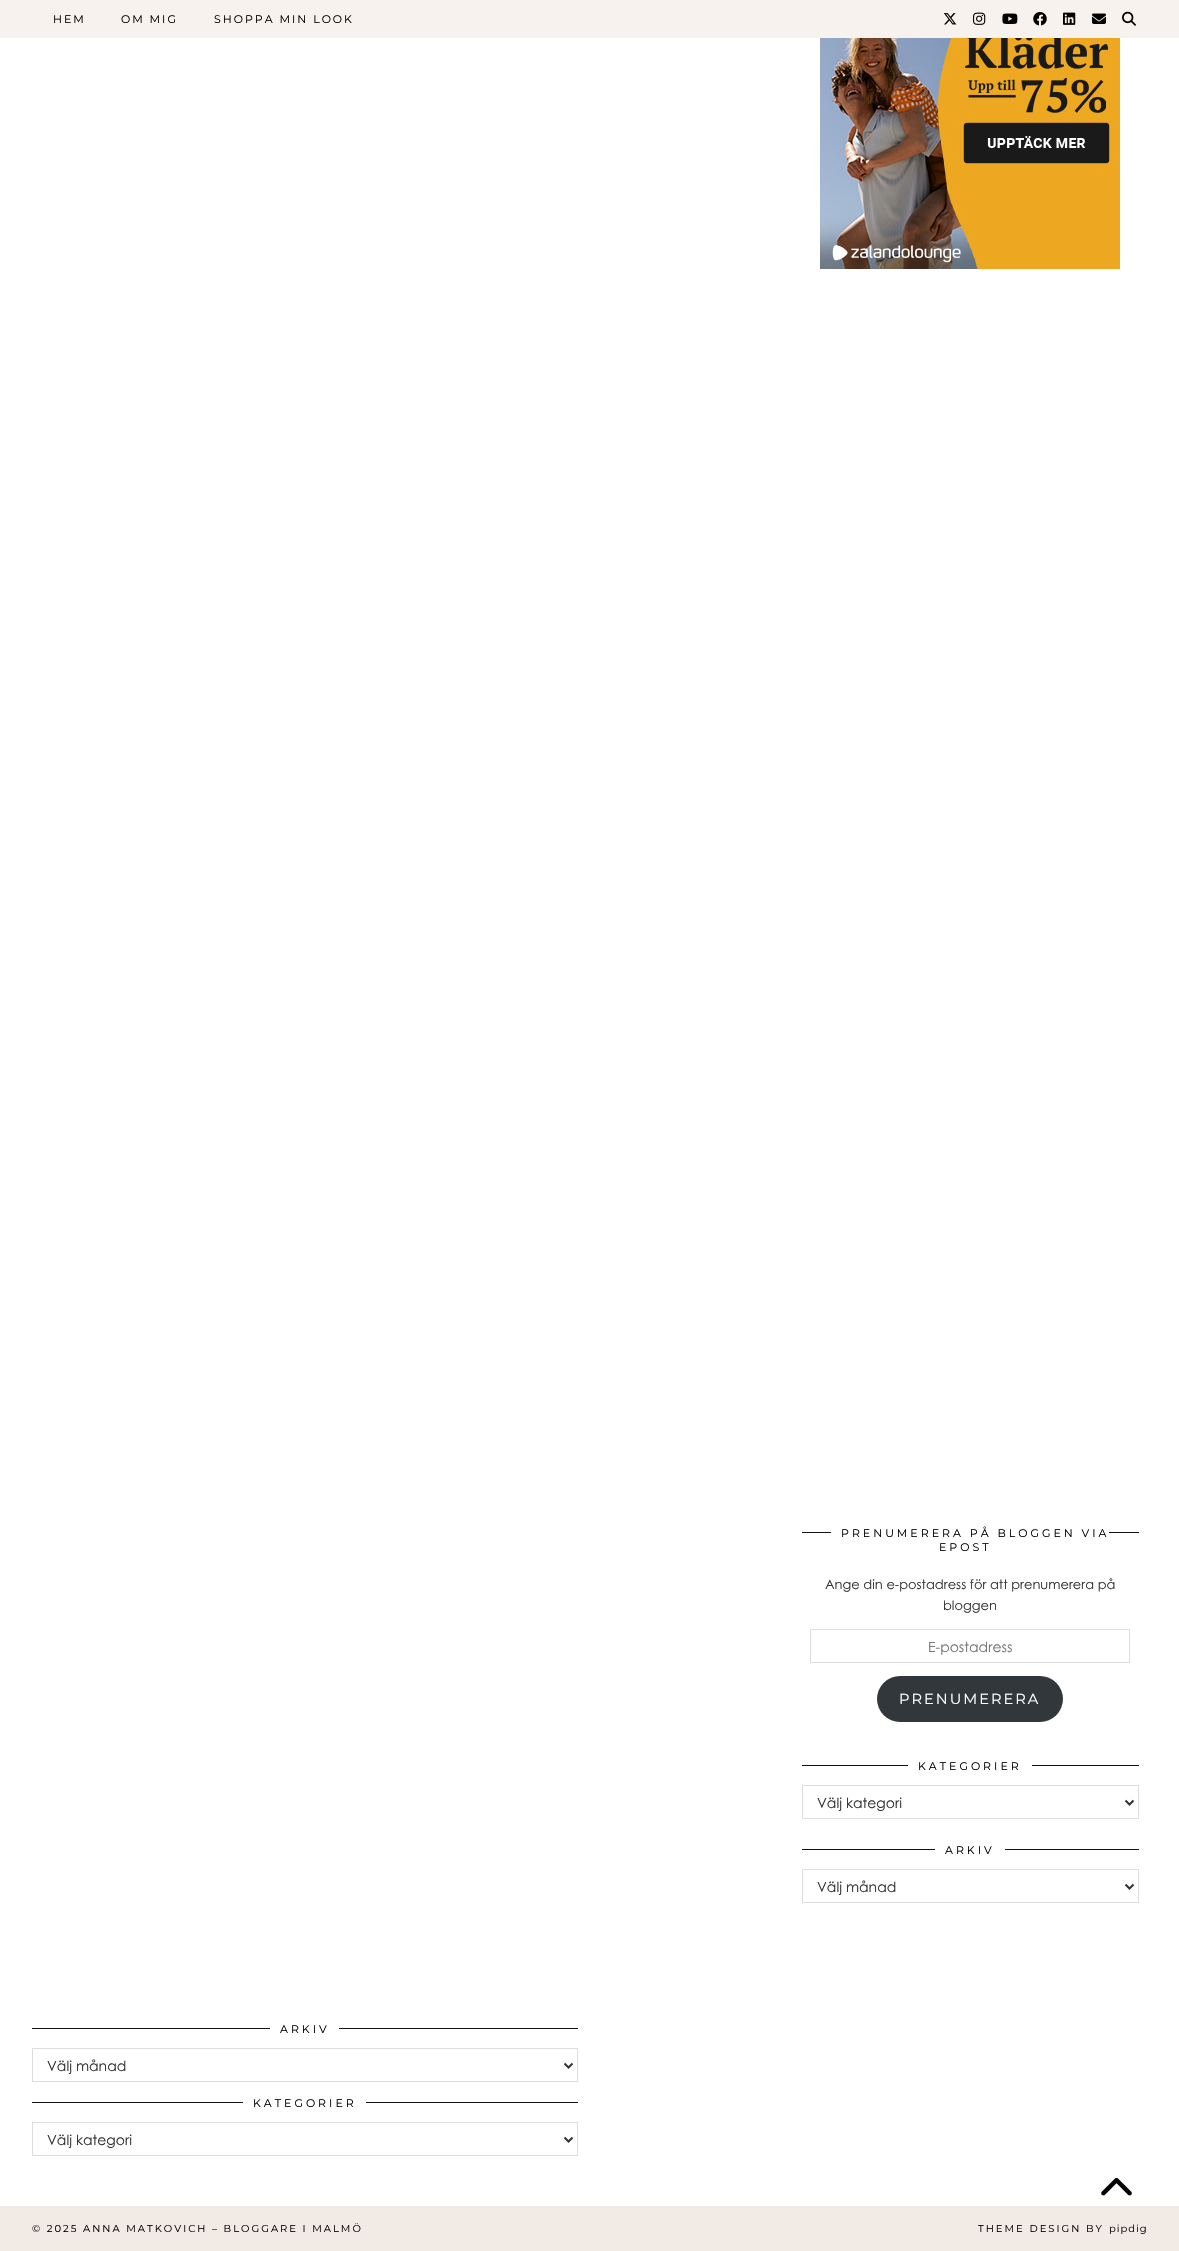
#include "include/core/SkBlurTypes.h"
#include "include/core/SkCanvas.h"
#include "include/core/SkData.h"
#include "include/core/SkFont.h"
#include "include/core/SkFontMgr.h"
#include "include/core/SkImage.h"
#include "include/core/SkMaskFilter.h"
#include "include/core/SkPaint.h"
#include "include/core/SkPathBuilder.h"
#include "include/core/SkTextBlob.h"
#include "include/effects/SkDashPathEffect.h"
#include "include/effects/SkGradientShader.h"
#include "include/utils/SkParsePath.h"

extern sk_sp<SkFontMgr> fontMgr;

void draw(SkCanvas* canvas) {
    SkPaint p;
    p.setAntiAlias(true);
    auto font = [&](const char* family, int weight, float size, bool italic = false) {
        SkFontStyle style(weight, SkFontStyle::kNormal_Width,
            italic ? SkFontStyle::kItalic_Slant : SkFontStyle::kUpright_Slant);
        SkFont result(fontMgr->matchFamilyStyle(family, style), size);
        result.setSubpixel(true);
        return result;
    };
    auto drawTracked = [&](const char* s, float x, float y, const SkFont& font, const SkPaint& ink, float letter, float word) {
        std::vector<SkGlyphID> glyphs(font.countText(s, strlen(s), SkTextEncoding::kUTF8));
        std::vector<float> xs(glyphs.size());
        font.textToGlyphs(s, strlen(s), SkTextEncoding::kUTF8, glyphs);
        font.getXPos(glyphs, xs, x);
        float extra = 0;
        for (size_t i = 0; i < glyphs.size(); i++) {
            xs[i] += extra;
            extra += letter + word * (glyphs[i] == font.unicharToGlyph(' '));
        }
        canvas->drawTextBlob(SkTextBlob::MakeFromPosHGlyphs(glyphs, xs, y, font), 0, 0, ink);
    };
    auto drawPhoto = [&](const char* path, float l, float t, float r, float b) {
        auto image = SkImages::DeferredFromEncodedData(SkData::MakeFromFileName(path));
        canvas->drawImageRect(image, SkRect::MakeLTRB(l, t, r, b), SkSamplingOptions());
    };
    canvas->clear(0xFFFFFFFF);
    p.setColor(0xFFF8F2EE);
    canvas->drawRect(SkRect::MakeLTRB(0, 0, 1179, 38), p);
    auto font1 = font("Montserrat", 100, 11);
    p.setColor(0xFF000000);
    {
        const struct { const char* s; float x, y; } items[] = {
            {"HEM", 53, 23},
            {"OM MIG", 121, 23},
            {"SHOPPA MIN LOOK", 214, 23},
        };
        for (auto [s, x, y] : items) {
            drawTracked(s, x, y, font1, p, 2, 0);
        }
    }
    drawPhoto("media/1.png", 943, 13, 957, 25);
    drawPhoto("media/2.png", 973, 12, 986, 25);
    drawPhoto("media/3.png", 1002, 13, 1018, 24);
    drawPhoto("media/4.png", 1033, 12, 1047, 26);
    drawPhoto("media/5.png", 1063, 12, 1076, 25);
    drawPhoto("media/6.png", 1092, 13, 1106, 24);
    drawPhoto("media/7.png", 1122, 11, 1136, 26);
    drawPhoto("media/8.png", 820, 38, 1120, 269);
    p.setColor(0xFF111111);
    canvas->drawRect(SkRect::MakeLTRB(802, 1532, 1139, 1533), p);
    p.setColor(0xFFFFFFFF);
    canvas->drawRect(SkRect::MakeLTRB(831, 1532, 1109, 1533), p);
    p.setColor(0xFF000000);
    drawTracked("PRENUMERERA PÅ BLOGGEN VIA", 841, 1537, font1, p, 3, 0);
    drawTracked("EPOST", 939, 1551, font1, p, 3, 0);
    auto font2 = font("Century Gothic", 400, 13);
    p.setColor(0xFF333333);
    canvas->drawString("Ange din e-postadress för att prenumerera på", 825, 1589, font2, p);
    canvas->drawString("bloggen", 943, 1610, font2, p);
    p.setStyle(SkPaint::kStroke_Style);
    p.setStrokeWidth(1);
    p.setColor(0xFFDDDDDD);
    canvas->drawRect(SkRect::MakeLTRB(810.5f, 1629.5f, 1129.5f, 1662.5f), p);
    auto font3 = font("Century Gothic", 400, 14);
    p.setStyle(SkPaint::kFill_Style);
    p.setColor(0xFF757575);
    canvas->drawString("E-postadress", 928, 1652, font3, p);
    p.setColor(0xFF32373C);
    canvas->drawRoundRect(SkRect::MakeLTRB(877, 1676, 1063, 1722), 23, 23, p);
    auto font4 = font("Montserrat", 100, 14.6f);
    p.setColor(0xFFFFFFFF);
    drawTracked("PRENUMERERA", 899, 1704, font4, p, 2, 0);
    p.setColor(0xFF111111);
    canvas->drawRect(SkRect::MakeLTRB(802, 1765, 1139, 1766), p);
    p.setColor(0xFFFFFFFF);
    canvas->drawRect(SkRect::MakeLTRB(908, 1765, 1032, 1766), p);
    p.setColor(0xFF000000);
    drawTracked("KATEGORIER", 918, 1770, font1, p, 3, 0);
    p.setStyle(SkPaint::kStroke_Style);
    p.setColor(0xFFDDDDDD);
    canvas->drawRect(SkRect::MakeLTRB(802.5f, 1785.5f, 1138.5f, 1818.5f), p);
    p.setStrokeWidth(2);
    p.setColor(0xFF333333);
    canvas->drawPath(SkPathBuilder().moveTo(1125.5f, 1800.5f).lineTo(1129.5f, 1804.5f).lineTo(1133.5f, 1800.5f).detach(), p);
    p.setStyle(SkPaint::kFill_Style);
    canvas->drawString("Välj kategori", 817, 1808, font3, p);
    p.setColor(0xFF111111);
    canvas->drawRect(SkRect::MakeLTRB(802, 1849, 1139, 1850), p);
    p.setColor(0xFFFFFFFF);
    canvas->drawRect(SkRect::MakeLTRB(935, 1849, 1005, 1850), p);
    p.setColor(0xFF000000);
    drawTracked("ARKIV", 945, 1854, font1, p, 3, 0);
    p.setStyle(SkPaint::kStroke_Style);
    p.setStrokeWidth(1);
    p.setColor(0xFFDDDDDD);
    canvas->drawRect(SkRect::MakeLTRB(802.5f, 1869.5f, 1138.5f, 1902.5f), p);
    p.setStrokeWidth(2);
    p.setColor(0xFF333333);
    canvas->drawPath(SkPathBuilder().moveTo(1125.5f, 1884.5f).lineTo(1129.5f, 1888.5f).lineTo(1133.5f, 1884.5f).detach(), p);
    p.setStyle(SkPaint::kFill_Style);
    canvas->drawString("Välj månad", 817, 1892, font3, p);
    p.setColor(0xFF111111);
    canvas->drawRect(SkRect::MakeLTRB(32, 2028, 578, 2029), p);
    p.setColor(0xFFFFFFFF);
    canvas->drawRect(SkRect::MakeLTRB(270, 2028, 339, 2029), p);
    p.setColor(0xFF000000);
    drawTracked("ARKIV", 280, 2033, font1, p, 3, 0);
    p.setStyle(SkPaint::kStroke_Style);
    p.setStrokeWidth(1);
    p.setColor(0xFFDDDDDD);
    canvas->drawRect(SkRect::MakeLTRB(32.5f, 2048.5f, 577.5f, 2081.5f), p);
    p.setStrokeWidth(2);
    p.setColor(0xFF333333);
    canvas->drawPath(SkPathBuilder().moveTo(564.5f, 2063.5f).lineTo(568.5f, 2067.5f).lineTo(572.5f, 2063.5f).detach(), p);
    p.setStyle(SkPaint::kFill_Style);
    canvas->drawString("Välj månad", 47, 2071, font3, p);
    p.setColor(0xFF111111);
    canvas->drawRect(SkRect::MakeLTRB(32, 2102, 578, 2103), p);
    p.setColor(0xFFFFFFFF);
    canvas->drawRect(SkRect::MakeLTRB(243, 2102, 366, 2103), p);
    p.setColor(0xFF000000);
    drawTracked("KATEGORIER", 253, 2107, font1, p, 3, 0);
    p.setStyle(SkPaint::kStroke_Style);
    p.setStrokeWidth(1);
    p.setColor(0xFFDDDDDD);
    canvas->drawRect(SkRect::MakeLTRB(32.5f, 2122.5f, 577.5f, 2155.5f), p);
    p.setStrokeWidth(2);
    p.setColor(0xFF333333);
    canvas->drawPath(SkPathBuilder().moveTo(564.5f, 2137.5f).lineTo(568.5f, 2141.5f).lineTo(572.5f, 2137.5f).detach(), p);
    p.setStyle(SkPaint::kFill_Style);
    canvas->drawString("Välj kategori", 47, 2145, font3, p);
    drawPhoto("media/9.png", 1101, 2178, 1132, 2196);
    p.setColor(0xFFF2EAE5);
    canvas->drawRect(SkRect::MakeLTRB(0, 2206, 1179, 2251), p);
    auto font5 = font("Montserrat", 100, 10);
    p.setColor(0xFF000000);
    drawTracked("© 2025 ANNA MATKOVICH – BLOGGARE I MALMÖ", 32, 2232, font5, p, 2, 0);
    drawTracked("THEME DESIGN BY", 978, 2232, font5, p, 2, 0);
    drawTracked("pipdig", 1109, 2232, font5, p, 1, 0);
}
